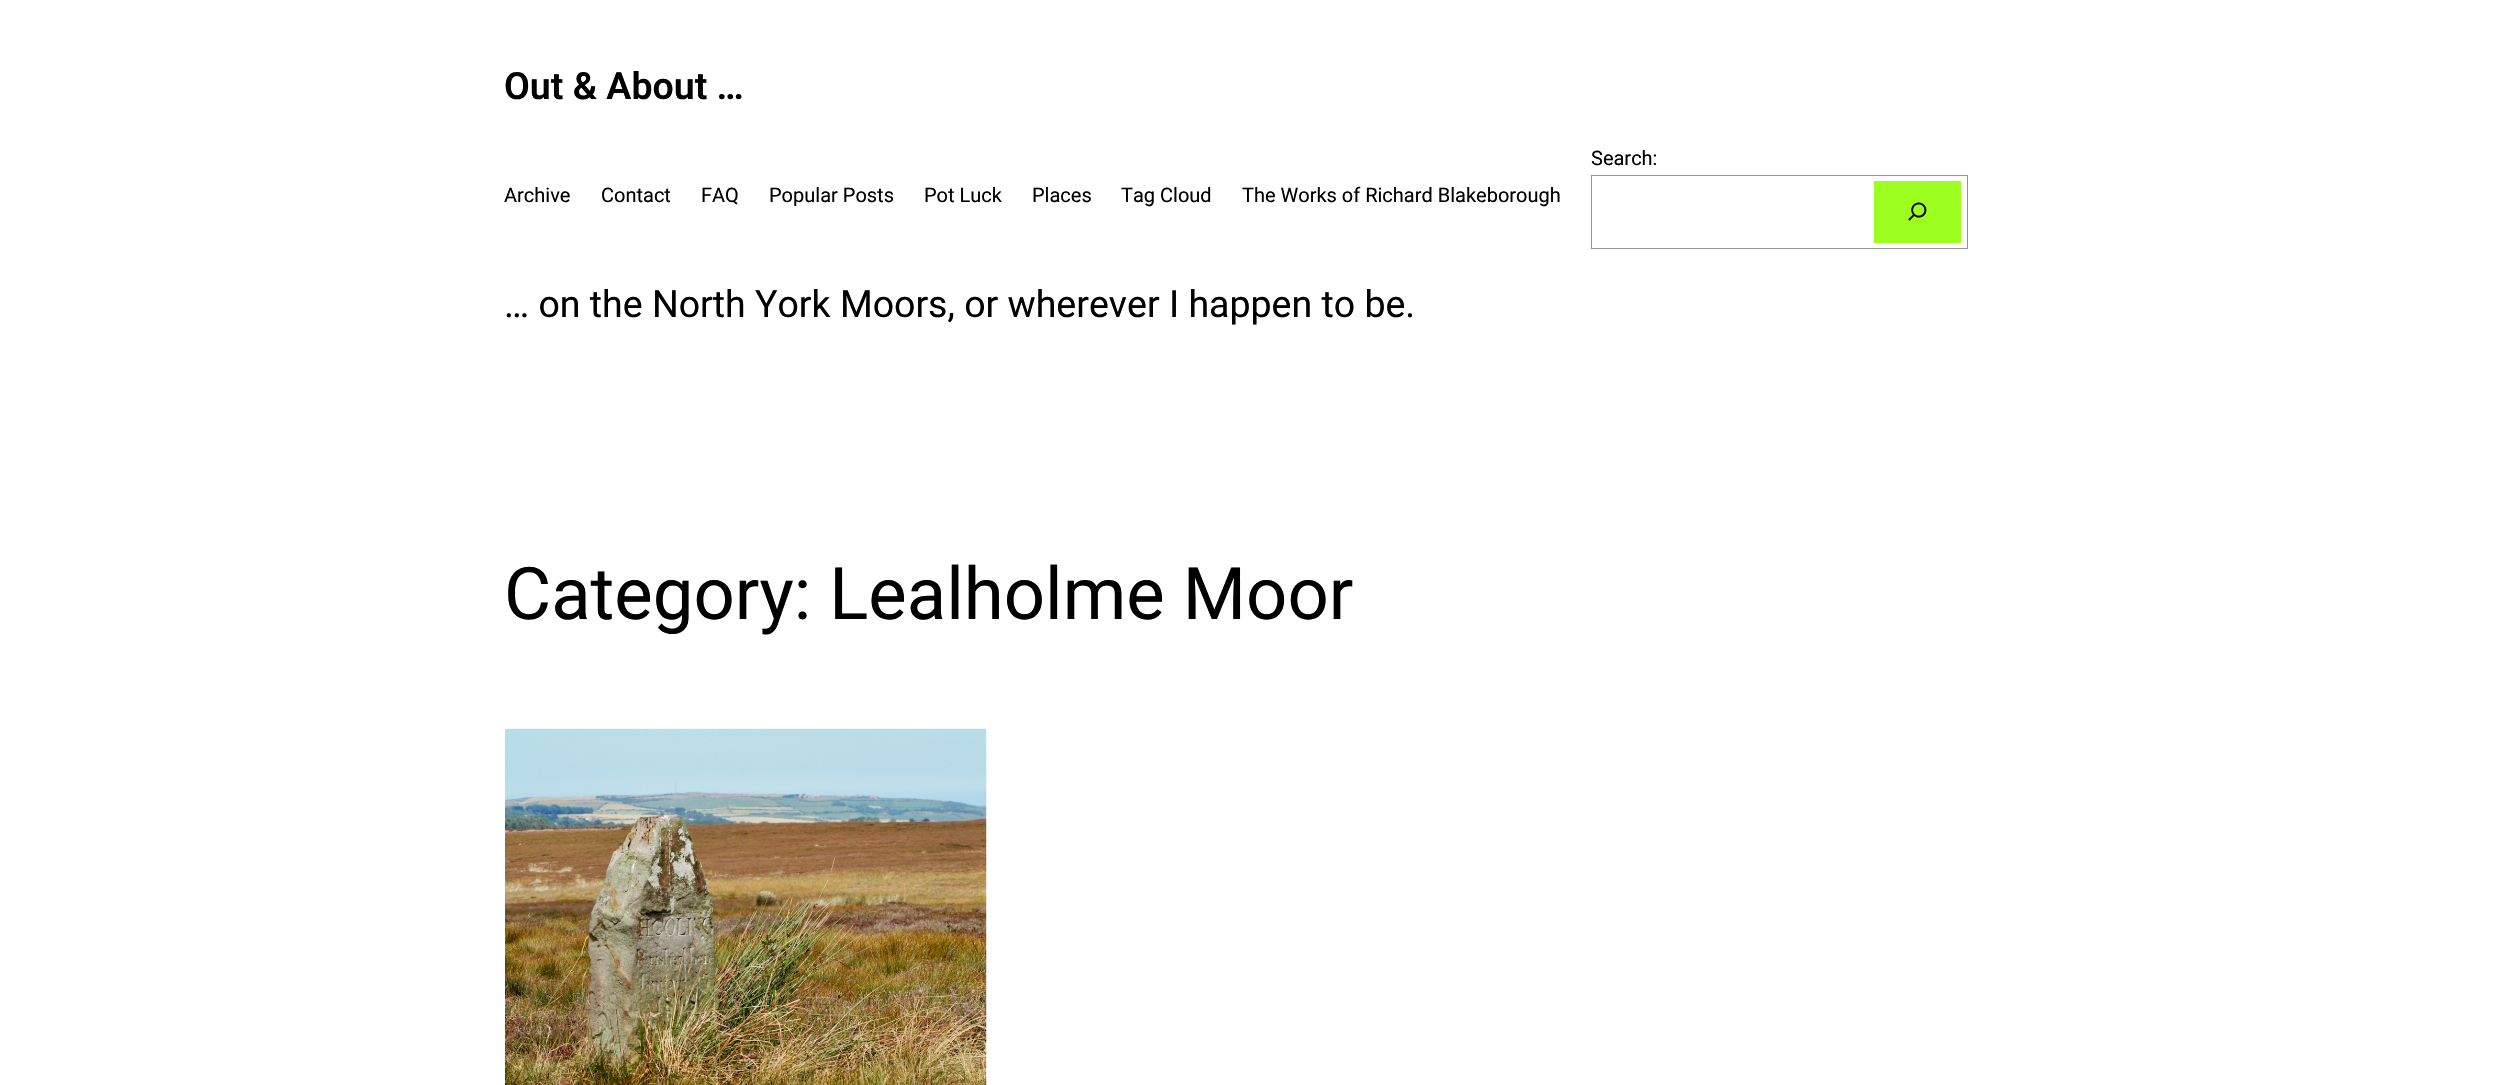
#include "include/core/SkBlurTypes.h"
#include "include/core/SkCanvas.h"
#include "include/core/SkData.h"
#include "include/core/SkFont.h"
#include "include/core/SkFontMgr.h"
#include "include/core/SkImage.h"
#include "include/core/SkMaskFilter.h"
#include "include/core/SkPaint.h"
#include "include/core/SkPathBuilder.h"
#include "include/core/SkTextBlob.h"
#include "include/effects/SkDashPathEffect.h"
#include "include/effects/SkGradientShader.h"
#include "include/utils/SkParsePath.h"

extern sk_sp<SkFontMgr> fontMgr;

void draw(SkCanvas* canvas) {
    SkPaint p;
    p.setAntiAlias(true);
    auto font = [&](const char* family, int weight, float size, bool italic = false) {
        SkFontStyle style(weight, SkFontStyle::kNormal_Width,
            italic ? SkFontStyle::kItalic_Slant : SkFontStyle::kUpright_Slant);
        SkFont result(fontMgr->matchFamilyStyle(family, style), size);
        result.setSubpixel(true);
        return result;
    };
    auto drawPhoto = [&](const char* path, float l, float t, float r, float b) {
        auto image = SkImages::DeferredFromEncodedData(SkData::MakeFromFileName(path));
        canvas->drawImageRect(image, SkRect::MakeLTRB(l, t, r, b), SkSamplingOptions());
    };
    canvas->clear(0xFFFFFFFF);
    auto font1 = font("Roboto", 600, 37.5f);
    p.setColor(0xFF000000);
    canvas->drawString("Out & About …", 504, 99, font1, p);
    auto font2 = font("Roboto", 400, 20);
    canvas->drawString("Search:", 1591, 165, font2, p);
    p.setStyle(SkPaint::kStroke_Style);
    p.setStrokeWidth(1);
    p.setColor(0xFF949494);
    canvas->drawRect(SkRect::MakeLTRB(1591.5f, 175.5f, 1967.5f, 248.5f), p);
    p.setStyle(SkPaint::kFill_Style);
    p.setColor(0xFF9DFF20);
    canvas->drawRect(SkRect::MakeLTRB(1874, 181, 1961, 243), p);
    drawPhoto("media/1.png", 1908, 202, 1927, 221);
    p.setColor(0xFF000000);
    {
        const struct { const char* s; float x, y; } items[] = {
            {"Archive", 504, 202},
            {"Contact", 601, 202},
            {"FAQ", 701, 202},
            {"Popular Posts", 769, 202},
            {"Pot Luck", 924, 202},
            {"Places", 1032, 202},
            {"Tag Cloud", 1121, 202},
            {"The Works of Richard Blakeborough", 1242, 202},
        };
        for (auto [s, x, y] : items) {
            canvas->drawString(s, x, y, font2, p);
        }
    }
    auto font3 = font("Roboto", 400, 37.5f);
    canvas->drawString("… on the North York Moors, or wherever I happen to be.", 504, 317, font3, p);
    auto font4 = font("Roboto", 400, 72.5f);
    canvas->drawString("Category: Lealholme Moor", 504, 619, font4, p);
    drawPhoto("media/2.png", 505, 728, 987, 1085);
}
